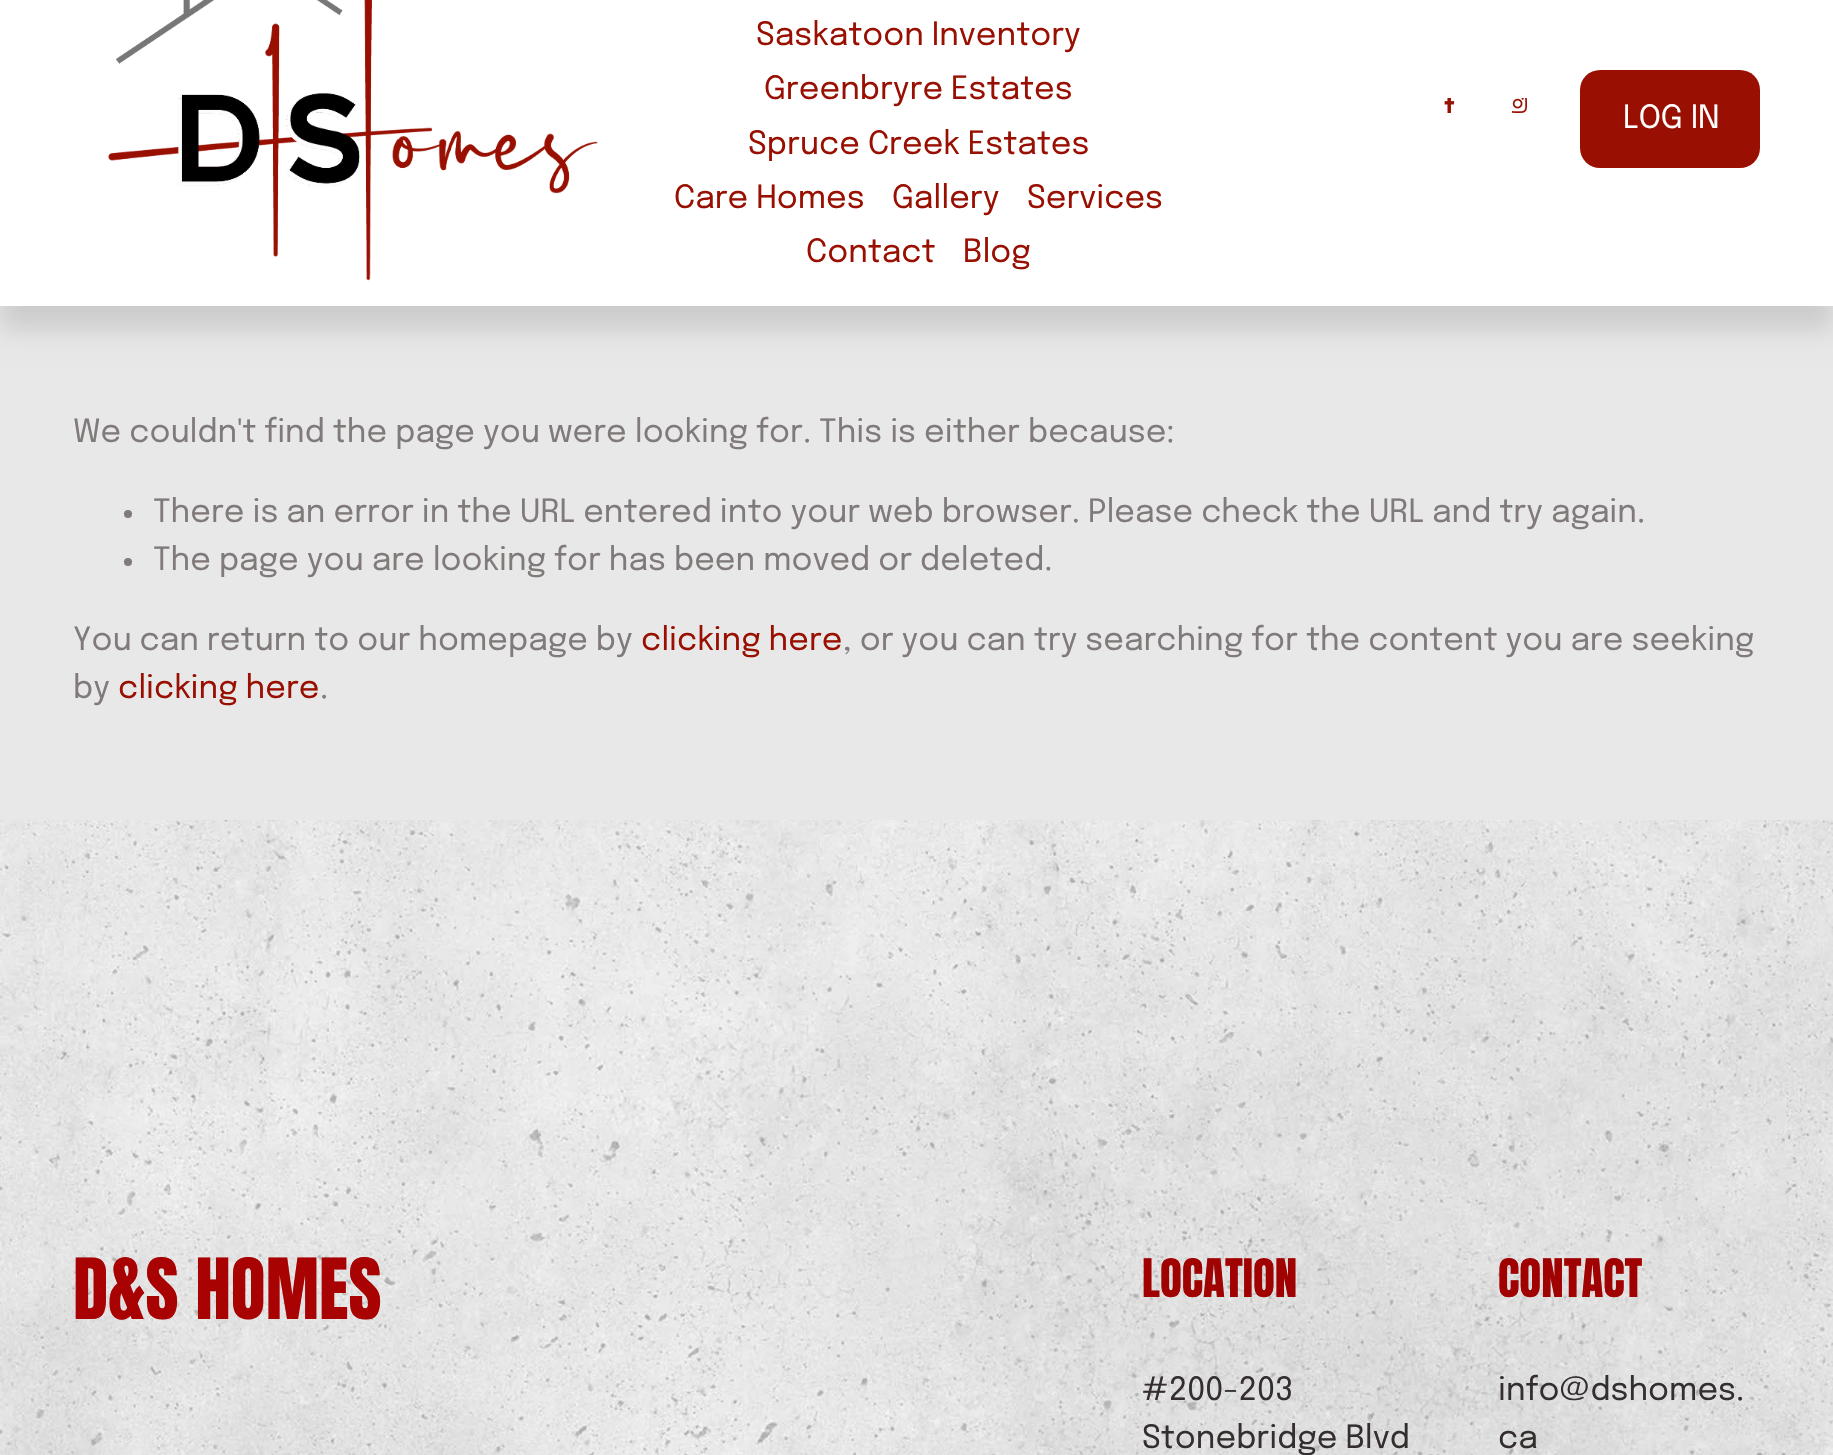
#include "include/core/SkBlurTypes.h"
#include "include/core/SkCanvas.h"
#include "include/core/SkData.h"
#include "include/core/SkFont.h"
#include "include/core/SkFontMgr.h"
#include "include/core/SkImage.h"
#include "include/core/SkMaskFilter.h"
#include "include/core/SkPaint.h"
#include "include/core/SkPathBuilder.h"
#include "include/core/SkTextBlob.h"
#include "include/effects/SkDashPathEffect.h"
#include "include/effects/SkGradientShader.h"
#include "include/utils/SkParsePath.h"

extern sk_sp<SkFontMgr> fontMgr;

void draw(SkCanvas* canvas) {
    SkPaint p;
    p.setAntiAlias(true);
    auto font = [&](const char* family, int weight, float size, bool italic = false) {
        SkFontStyle style(weight, SkFontStyle::kNormal_Width,
            italic ? SkFontStyle::kItalic_Slant : SkFontStyle::kUpright_Slant);
        SkFont result(fontMgr->matchFamilyStyle(family, style), size);
        result.setSubpixel(true);
        return result;
    };
    auto drawPhoto = [&](const char* path, float l, float t, float r, float b) {
        auto image = SkImages::DeferredFromEncodedData(SkData::MakeFromFileName(path));
        canvas->drawImageRect(image, SkRect::MakeLTRB(l, t, r, b), SkSamplingOptions());
    };
    canvas->clear(0xFFE8E8E8);
    p.setColor(0xFFCDCCCC);
    p.setMaskFilter(SkMaskFilter::MakeBlur(kNormal_SkBlurStyle, 12));
    canvas->drawRect(SkRect::MakeLTRB(0, -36, 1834, 330), p);
    p.setMaskFilter(nullptr);
    p.setColor(0xFFFFFFFF);
    canvas->drawRect(SkRect::MakeLTRB(0, 0, 1833, 306), p);
    drawPhoto("media/1.png", 108, 0, 598, 281);
    auto font1 = font("Epilogue", 400, 32);
    p.setColor(0xFF991002);
    {
        const struct { const char* s; float x, y; } items[] = {
            {"Saskatoon Inventory", 756, 45},
            {"Greenbryre Estates", 764, 99},
            {"Spruce Creek Estates", 748, 154},
            {"Care Homes", 674, 208},
            {"Gallery", 892, 208},
            {"Services", 1027, 208},
            {"Contact", 806, 262},
            {"Blog", 963, 262},
        };
        for (auto [s, x, y] : items) {
            canvas->drawString(s, x, y, font1, p);
        }
    }
    drawPhoto("media/2.png", 1444, 98, 1455, 113);
    drawPhoto("media/3.png", 1512, 98, 1527, 113);
    canvas->drawRoundRect(SkRect::MakeLTRB(1580, 70, 1760, 168), 20, 20, p);
    p.setColor(0xFFFFFFFF);
    canvas->drawString("LOG IN", 1623, 128, font1, p);
    p.setColor(0xFF817A7A);
    canvas->drawString("We couldn't find the page you were looking for. This is either because:", 73, 442, font1, p);
    canvas->drawCircle(128, 514, 4, p);
    canvas->drawString("There is an error in the URL entered into your web browser. Please check the URL and try again.", 153, 522, font1, p);
    canvas->drawCircle(128, 562, 4, p);
    canvas->drawString("The page you are looking for has been moved or deleted.", 153, 570, font1, p);
    canvas->drawString("You can return to our homepage by", 73, 650, font1, p);
    p.setColor(0xFF991002);
    canvas->drawString("clicking here", 641, 650, font1, p);
    p.setColor(0xFF817A7A);
    canvas->drawString(", or you can try searching for the content you are seeking", 843, 650, font1, p);
    canvas->drawString("by", 73, 698, font1, p);
    p.setColor(0xFF991002);
    canvas->drawString("clicking here", 118, 698, font1, p);
    p.setColor(0xFF817A7A);
    canvas->drawString(".", 320, 698, font1, p);
    drawPhoto("media/4.png", 0, 820, 1833, 1455);
    auto font2 = font("Anton", 400, 71.5f);
    p.setColor(0xFFA80202);
    canvas->drawString("D&S HOMES", 73, 1319, font2, p);
    auto font3 = font("Anton", 400, 45);
    p.setColor(0xFFA00101);
    canvas->drawString("LOCATION", 1142, 1297, font3, p);
    p.setColor(0xFF342E2E);
    canvas->drawString("#200-203", 1142, 1400, font1, p);
    canvas->drawString("Stonebridge Blvd", 1142, 1448, font1, p);
    p.setColor(0xFFA00101);
    canvas->drawString("CONTACT", 1498, 1297, font3, p);
    p.setColor(0xFF342E2E);
    canvas->drawString("info@dshomes.", 1498, 1400, font1, p);
    canvas->drawString("ca", 1498, 1448, font1, p);
}
